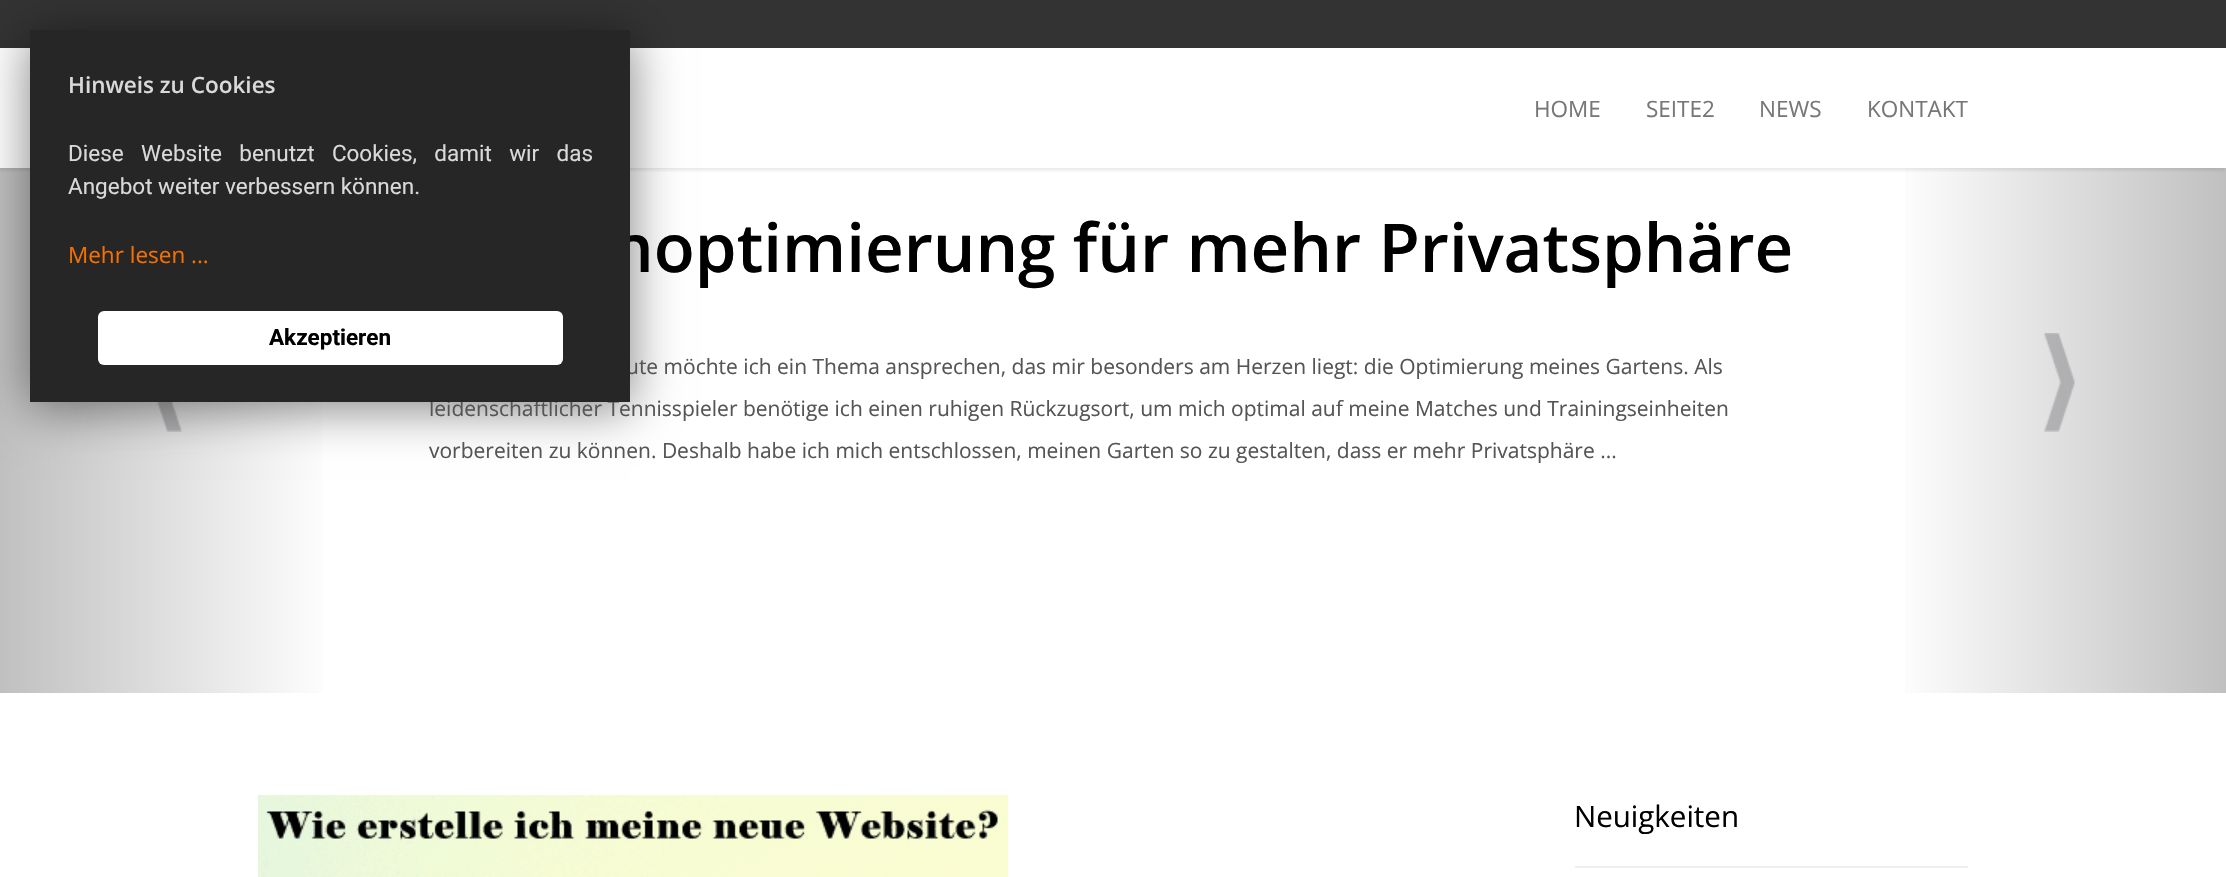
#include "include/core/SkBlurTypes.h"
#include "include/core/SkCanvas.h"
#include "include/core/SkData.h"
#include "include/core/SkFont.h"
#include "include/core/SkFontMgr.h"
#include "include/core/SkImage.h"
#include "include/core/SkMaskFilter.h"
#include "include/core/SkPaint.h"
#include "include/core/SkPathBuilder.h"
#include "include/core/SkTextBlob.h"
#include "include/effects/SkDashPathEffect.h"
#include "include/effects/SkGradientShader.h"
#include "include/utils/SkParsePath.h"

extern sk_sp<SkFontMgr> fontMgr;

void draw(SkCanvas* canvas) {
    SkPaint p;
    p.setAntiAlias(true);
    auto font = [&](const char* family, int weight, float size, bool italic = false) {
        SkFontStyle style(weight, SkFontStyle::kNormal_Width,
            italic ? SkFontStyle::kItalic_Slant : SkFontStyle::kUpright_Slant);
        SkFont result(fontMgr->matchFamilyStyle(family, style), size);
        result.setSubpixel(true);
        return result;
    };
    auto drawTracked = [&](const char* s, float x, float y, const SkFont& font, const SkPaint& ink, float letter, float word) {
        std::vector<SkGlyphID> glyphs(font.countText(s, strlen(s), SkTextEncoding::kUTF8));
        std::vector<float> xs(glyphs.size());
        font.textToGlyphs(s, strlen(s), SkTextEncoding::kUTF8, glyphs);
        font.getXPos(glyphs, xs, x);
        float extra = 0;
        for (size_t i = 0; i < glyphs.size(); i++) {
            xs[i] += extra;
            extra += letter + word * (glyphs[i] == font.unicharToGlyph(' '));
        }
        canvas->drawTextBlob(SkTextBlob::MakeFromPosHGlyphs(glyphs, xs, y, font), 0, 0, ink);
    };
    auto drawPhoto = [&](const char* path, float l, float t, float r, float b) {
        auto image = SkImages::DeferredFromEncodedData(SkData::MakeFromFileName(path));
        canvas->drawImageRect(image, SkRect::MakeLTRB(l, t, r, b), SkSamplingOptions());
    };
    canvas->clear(0xFFFFFFFF);
    p.setColor(0xFF333333);
    canvas->drawRect(SkRect::MakeLTRB(0, 0, 2226, 48), p);
    {
        const SkColor colors[] = {0xFFC0C0C0, 0xFFFFFFFF};
        const float stops[] = {0, 1};
        const SkPoint ends[] = {{0, 431}, {335, 431}};
        p.setShader(SkGradientShader::MakeLinear(ends, colors, stops, 2, SkTileMode::kClamp));
        p.setAlpha(255);
    }
    canvas->drawRect(SkRect::MakeLTRB(0, 168, 322, 693), p);
    drawPhoto("media/1.png", 157, 402, 182, 432);
    p.setShader(nullptr);
    p.setColor(0x80000000);
    p.setMaskFilter(SkMaskFilter::MakeBlur(kNormal_SkBlurStyle, 24));
    canvas->drawRect(SkRect::MakeLTRB(30, 36, 630, 408), p);
    p.setMaskFilter(nullptr);
    {
        const SkColor colors[] = {0xFFFFFFFF, 0xFFC0C0C0};
        const float stops[] = {0, 1};
        const SkPoint ends[] = {{1892, 431}, {2226, 431}};
        p.setShader(SkGradientShader::MakeLinear(ends, colors, stops, 2, SkTileMode::kClamp));
        p.setAlpha(255);
    }
    canvas->drawRect(SkRect::MakeLTRB(1905, 168, 2226, 693), p);
    canvas->save();
    canvas->clipRect(SkRect::MakeLTRB(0, 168, 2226, 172));
    p.setShader(nullptr);
    p.setColor(0x1A000000);
    p.setMaskFilter(SkMaskFilter::MakeBlur(kNormal_SkBlurStyle, 2));
    canvas->drawRect(SkRect::MakeLTRB(-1, 50, 2225, 170), p);
    p.setMaskFilter(nullptr);
    canvas->restore();
    auto font1 = font("Open Sans", 600, 67.25f);
    p.setColor(0xFF000000);
    canvas->drawString("noptimierung für mehr Privatsphäre", 611, 272, font1, p);
    auto font2 = font("Open Sans", 400, 21);
    p.setColor(0xFF555555);
    canvas->drawString("ute möchte ich ein Thema ansprechen, das mir besonders am Herzen liegt: die Optimierung meines Gartens. Als", 626, 374, font2, p);
    canvas->drawString("leidenschaftlicher Tennisspieler benötige ich einen ruhigen Rückzugsort, um mich optimal auf meine Matches und Trainingseinheiten", 429, 416, font2, p);
    p.setColor(0xFF262626);
    canvas->drawRect(SkRect::MakeLTRB(30, 30, 630, 402), p);
    auto font3 = font("Open Sans", 600, 22.5f);
    p.setColor(0xFFD9D9D9);
    canvas->drawString("Hinweis zu Cookies", 68, 93, font3, p);
    auto font4 = font("Roboto", 400, 22.5f);
    drawTracked("Diese Website benutzt Cookies, damit wir das", 68, 161, font4, p, 0, 11.75f);
    canvas->drawString("Angebot weiter verbessern können.", 68, 194, font4, p);
    auto font5 = font("Open Sans", 400, 22.5f);
    p.setColor(0xFFF67000);
    canvas->drawString("Mehr lesen ...", 68, 263, font5, p);
    p.setColor(0xFFFFFFFF);
    canvas->drawRoundRect(SkRect::MakeLTRB(98, 311, 563, 365), 6, 6, p);
    auto font6 = font("Roboto", 700, 22.5f);
    p.setColor(0xFF000000);
    canvas->drawString("Akzeptieren", 269, 345, font6, p);
    p.setColor(0xFF777777);
    {
        const struct { const char* s; float x, y; } items[] = {
            {"HOME", 1534, 117},
            {"SEITE2", 1646, 117},
            {"NEWS", 1759, 117},
            {"KONTAKT", 1867, 117},
        };
        for (auto [s, x, y] : items) {
            canvas->drawString(s, x, y, font5, p);
        }
    }
    p.setColor(0xFF555555);
    canvas->drawString("vorbereiten zu können. Deshalb habe ich mich entschlossen, meinen Garten so zu gestalten, dass er mehr Privatsphäre ...", 429, 458, font2, p);
    drawPhoto("media/2.png", 2044, 333, 2075, 432);
    drawPhoto("media/3.png", 258, 795, 1008, 877);
    auto font7 = font("Open Sans", 400, 29.5f);
    p.setColor(0xFF000000);
    canvas->drawString("Neuigkeiten", 1574, 827, font7, p);
    p.setColor(0xFFEEEEEE);
    canvas->drawRect(SkRect::MakeLTRB(1575, 866, 1968, 868), p);
}
